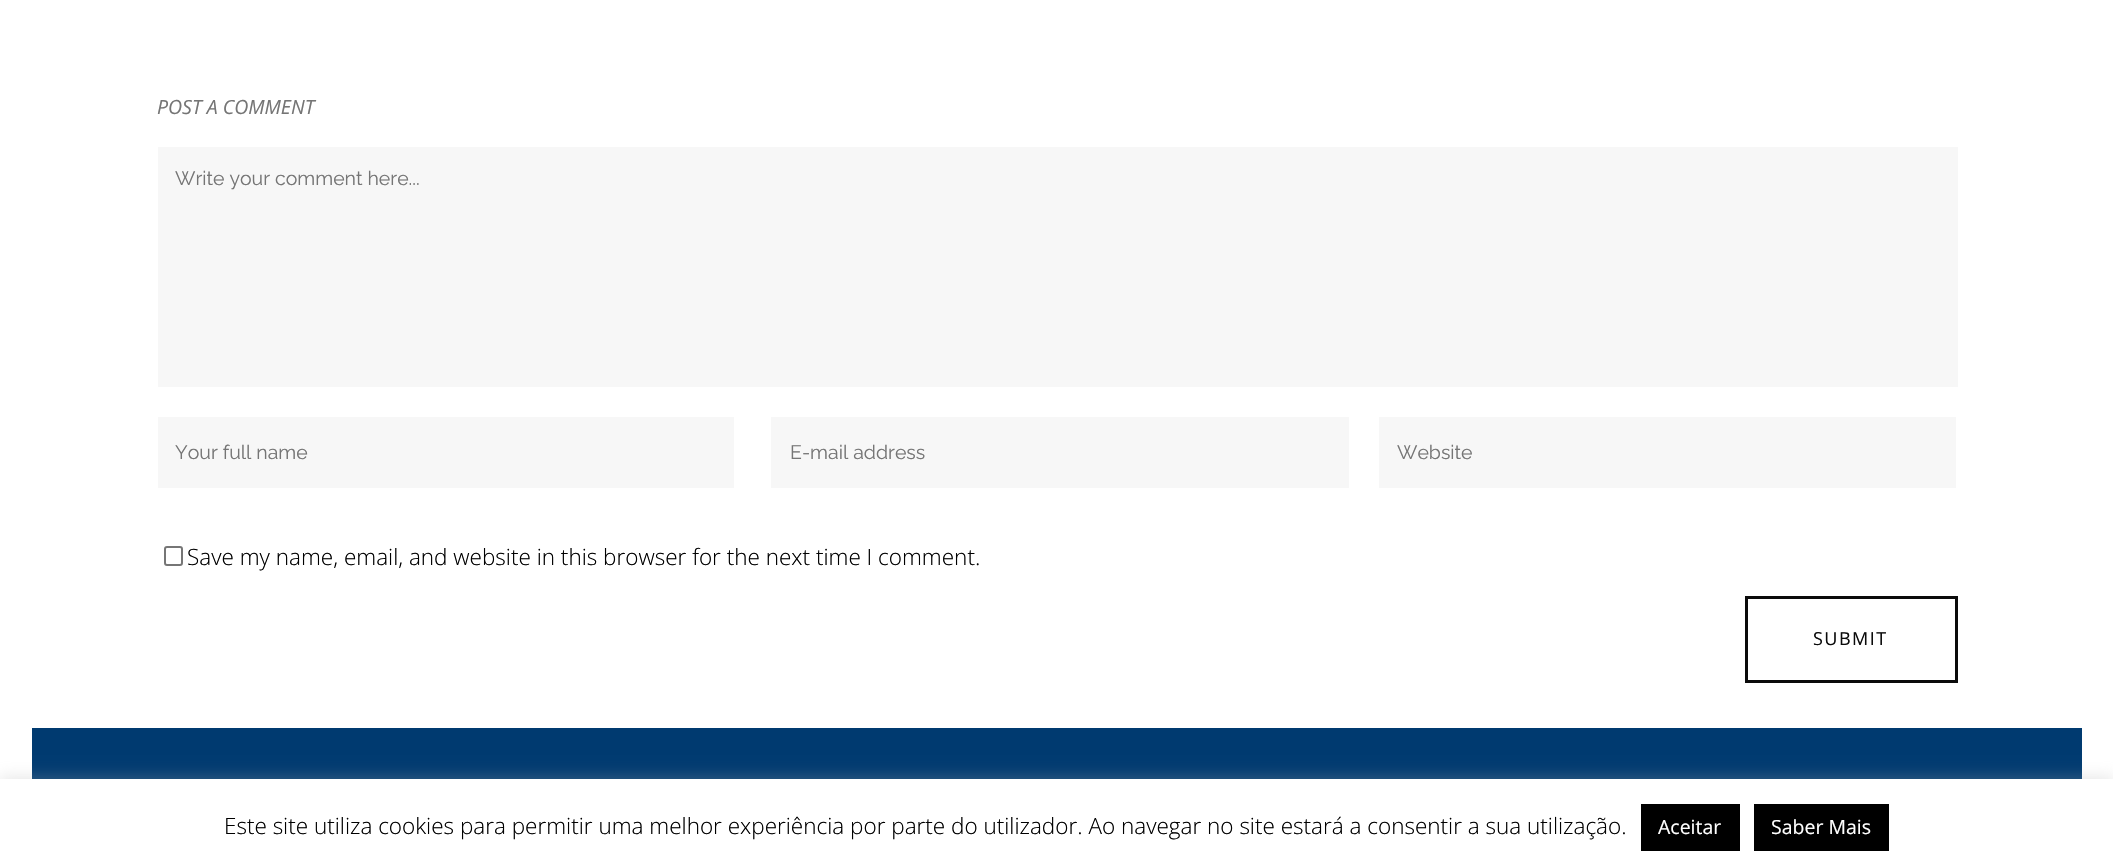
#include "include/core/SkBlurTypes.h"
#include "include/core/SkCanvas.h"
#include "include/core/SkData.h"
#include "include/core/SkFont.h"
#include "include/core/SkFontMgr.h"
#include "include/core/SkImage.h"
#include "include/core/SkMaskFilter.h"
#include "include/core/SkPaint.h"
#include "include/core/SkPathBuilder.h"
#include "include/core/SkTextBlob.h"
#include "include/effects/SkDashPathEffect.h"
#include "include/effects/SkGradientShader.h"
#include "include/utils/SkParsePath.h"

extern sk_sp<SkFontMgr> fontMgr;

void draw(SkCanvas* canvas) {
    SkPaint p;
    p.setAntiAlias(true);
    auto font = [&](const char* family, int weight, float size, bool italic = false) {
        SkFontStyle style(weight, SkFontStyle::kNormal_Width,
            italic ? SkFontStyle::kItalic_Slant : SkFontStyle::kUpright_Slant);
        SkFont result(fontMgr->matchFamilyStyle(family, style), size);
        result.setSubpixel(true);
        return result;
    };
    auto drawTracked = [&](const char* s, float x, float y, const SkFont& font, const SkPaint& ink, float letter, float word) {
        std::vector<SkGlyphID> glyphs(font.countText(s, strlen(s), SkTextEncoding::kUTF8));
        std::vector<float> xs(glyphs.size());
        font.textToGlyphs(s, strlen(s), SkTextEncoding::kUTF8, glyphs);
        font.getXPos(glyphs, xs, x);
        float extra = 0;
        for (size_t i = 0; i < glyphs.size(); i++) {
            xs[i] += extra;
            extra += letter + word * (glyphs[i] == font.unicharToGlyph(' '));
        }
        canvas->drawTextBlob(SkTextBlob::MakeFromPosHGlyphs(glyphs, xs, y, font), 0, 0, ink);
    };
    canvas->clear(0xFFFFFFFF);
    auto font1 = font("Open Sans", 400, 19.5f, true);
    p.setColor(0xFF757575);
    canvas->drawString("POST A COMMENT", 157, 114, font1, p);
    p.setColor(0xFFF7F7F7);
    canvas->drawRect(SkRect::MakeLTRB(158, 147, 1958, 387), p);
    auto font2 = font("Raleway", 400, 19.5f);
    p.setColor(0xFF757575);
    canvas->drawString("Write your comment here...", 175, 185, font2, p);
    p.setColor(0xFFF7F7F7);
    canvas->drawRect(SkRect::MakeLTRB(158, 417, 734, 488), p);
    p.setColor(0xFF757575);
    canvas->drawString("Your full name", 175, 459, font2, p);
    p.setColor(0xFFF7F7F7);
    canvas->drawRect(SkRect::MakeLTRB(771, 417, 1349, 488), p);
    p.setColor(0xFF757575);
    canvas->drawString("E-mail address", 790, 459, font2, p);
    p.setColor(0xFFF7F7F7);
    canvas->drawRect(SkRect::MakeLTRB(1379, 417, 1956, 488), p);
    p.setColor(0xFF757575);
    canvas->drawString("Website", 1397, 459, font2, p);
    p.setStyle(SkPaint::kStroke_Style);
    p.setStrokeWidth(2);
    p.setColor(0xFF767676);
    canvas->drawRoundRect(SkRect::MakeLTRB(165, 547, 182, 565), 2, 2, p);
    auto font3 = font("Open Sans", 300, 22.5f);
    p.setStyle(SkPaint::kFill_Style);
    p.setColor(0xFF000000);
    canvas->drawString("Save my name, email, and website in this browser for the next time I comment.", 187, 565, font3, p);
    p.setStyle(SkPaint::kStroke_Style);
    p.setStrokeWidth(3);
    p.setColor(0xFF0B0B0B);
    canvas->drawRect(SkRect::MakeLTRB(1746.5f, 597.5f, 1956.5f, 681.5f), p);
    auto font4 = font("Open Sans", 400, 18);
    p.setStyle(SkPaint::kFill_Style);
    drawTracked("SUBMIT", 1813, 645, font4, p, 1.5f, 0);
    p.setColor(0xFF003A70);
    canvas->drawRect(SkRect::MakeLTRB(32, 728, 2082, 779), p);
    p.setColor(0x4DACABAB);
    p.setMaskFilter(SkMaskFilter::MakeBlur(kNormal_SkBlurStyle, 7.5f));
    canvas->drawRect(SkRect::MakeLTRB(0, 777, 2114, 867), p);
    p.setMaskFilter(nullptr);
    p.setColor(0xFFFFFFFF);
    canvas->drawRect(SkRect::MakeLTRB(0, 779, 2113, 868), p);
    p.setColor(0xFF000000);
    canvas->drawString("Este site utiliza cookies para permitir uma melhor experiência por parte do utilizador. Ao navegar no site estará a consentir a sua utilização.", 224, 834, font3, p);
    canvas->drawRect(SkRect::MakeLTRB(1641, 804, 1740, 851), p);
    auto font5 = font("Open Sans", 400, 19.5f);
    p.setColor(0xFFFFFFFF);
    canvas->drawString("Aceitar", 1658, 834, font5, p);
    p.setColor(0xFF000000);
    canvas->drawRect(SkRect::MakeLTRB(1754, 804, 1889, 851), p);
    p.setColor(0xFFFFFFFF);
    canvas->drawString("Saber Mais", 1771, 834, font5, p);
}
